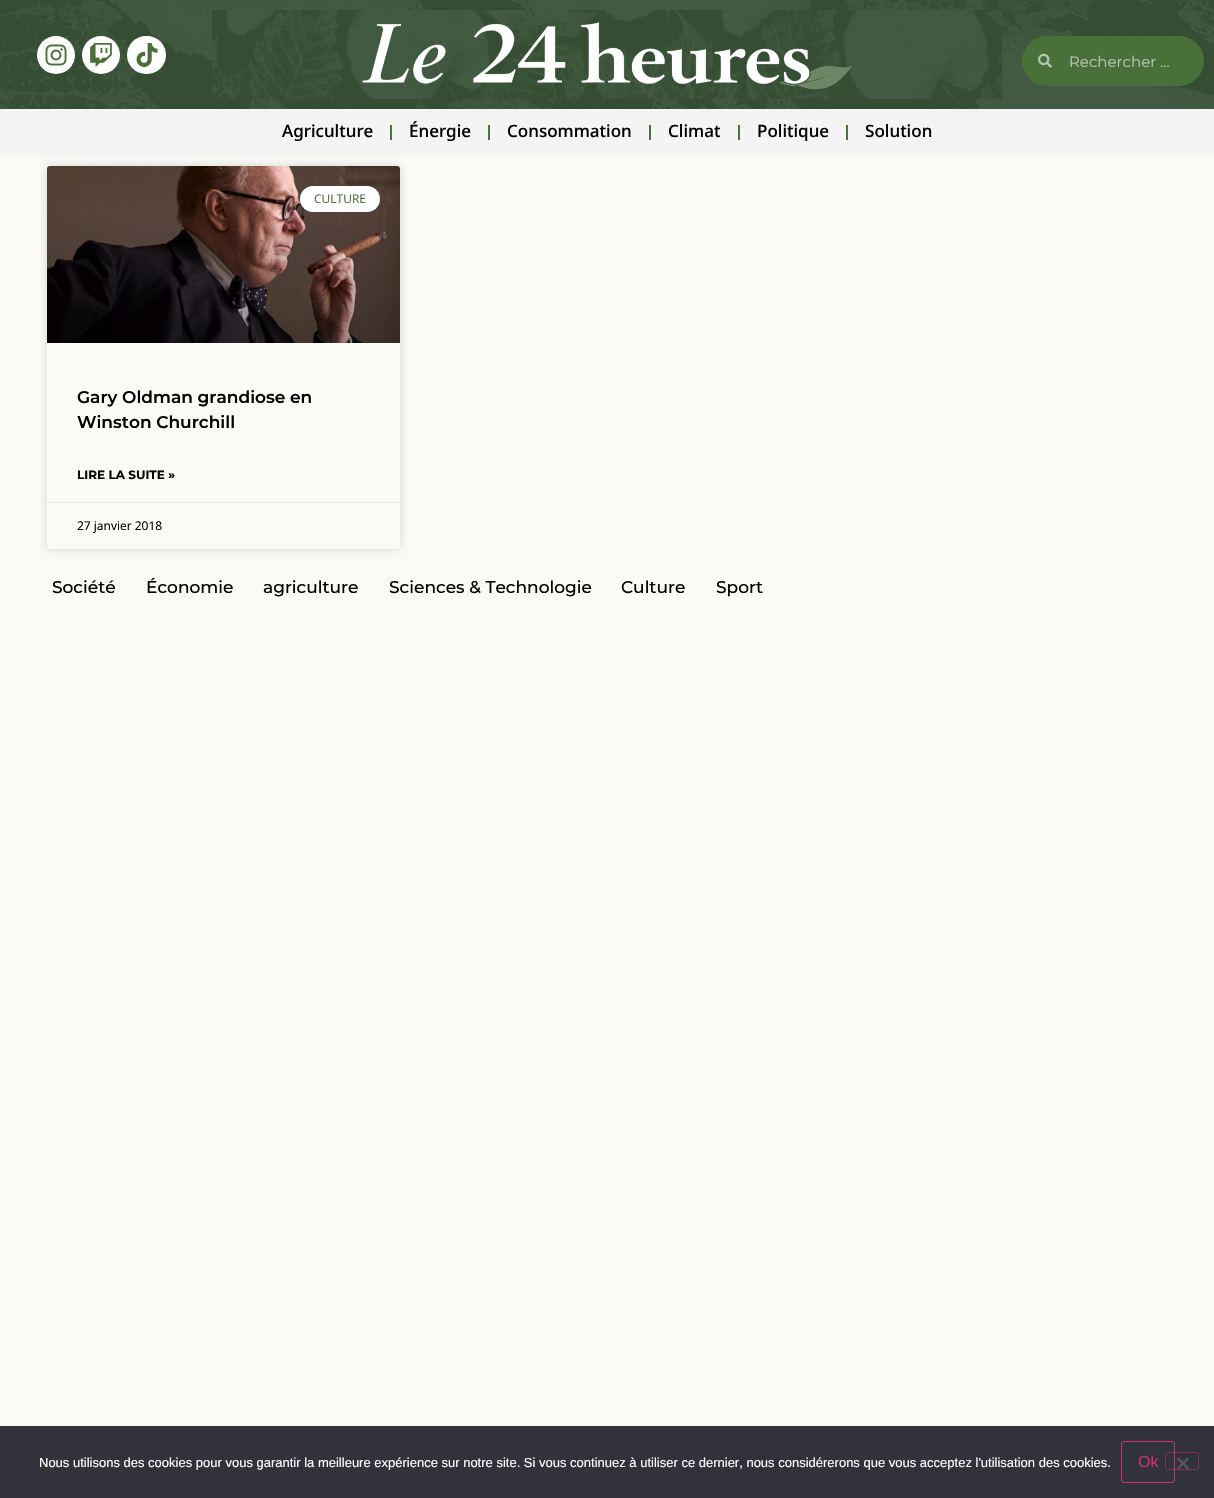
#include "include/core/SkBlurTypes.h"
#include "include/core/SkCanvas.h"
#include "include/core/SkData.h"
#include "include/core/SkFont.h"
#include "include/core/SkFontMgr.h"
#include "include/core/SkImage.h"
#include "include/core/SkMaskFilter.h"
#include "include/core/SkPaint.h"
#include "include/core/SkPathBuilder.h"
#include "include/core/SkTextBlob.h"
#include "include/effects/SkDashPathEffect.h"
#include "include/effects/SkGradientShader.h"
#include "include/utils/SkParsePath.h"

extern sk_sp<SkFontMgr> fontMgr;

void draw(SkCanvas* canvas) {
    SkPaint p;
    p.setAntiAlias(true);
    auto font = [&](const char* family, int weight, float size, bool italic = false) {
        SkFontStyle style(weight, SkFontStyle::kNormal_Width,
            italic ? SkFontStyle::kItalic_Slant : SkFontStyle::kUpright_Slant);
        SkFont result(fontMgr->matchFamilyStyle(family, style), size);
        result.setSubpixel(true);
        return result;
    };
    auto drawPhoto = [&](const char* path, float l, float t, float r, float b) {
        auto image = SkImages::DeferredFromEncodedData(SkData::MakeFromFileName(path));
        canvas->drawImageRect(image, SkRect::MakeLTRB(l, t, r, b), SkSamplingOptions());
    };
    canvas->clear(0xFFFAFAF7);
    p.setColor(0xFFF4F4F4);
    canvas->drawRect(SkRect::MakeLTRB(0, 109, 1214, 156), p);
    drawPhoto("media/1.png", 0, 0, 1214, 109);
    p.setColor(0xFFFCFCFC);
    canvas->drawCircle(56, 55, 19, p);
    drawPhoto("media/2.png", 45, 44, 67, 66);
    p.setColor(0xFFFFFFFF);
    canvas->drawCircle(101, 55, 19, p);
    drawPhoto("media/3.png", 90, 43, 112, 67);
    canvas->drawRoundRect(SkRect::MakeLTRB(127, 36, 166, 74), 19, 19, p);
    drawPhoto("media/4.png", 136, 43, 158, 67);
    drawPhoto("media/5.png", 212, 10, 1002, 99);
    drawPhoto("media/6.png", 362, 22, 852, 90);
    p.setColor(0xFF4A7039);
    canvas->drawRoundRect(SkRect::MakeLTRB(1022, 36, 1204, 86), 25, 25, p);
    drawPhoto("media/7.png", 1038, 53, 1052, 68);
    auto font1 = font("Montserrat", 400, 15);
    p.setColor(0xFFB7C6B0);
    canvas->drawString("Rechercher ...", 1069, 67, font1, p);
    auto font2 = font("Noto Sans Bengali", 500, 17);
    p.setColor(0xFF000000);
    canvas->drawString("Agriculture", 282, 137, font2, p);
    p.setColor(0xFF4A7039);
    canvas->drawRect(SkRect::MakeLTRB(390, 125, 392, 140), p);
    p.setColor(0xFF000000);
    canvas->drawString("Énergie", 409, 137, font2, p);
    p.setColor(0xFF4A7039);
    canvas->drawRect(SkRect::MakeLTRB(488, 125, 490, 140), p);
    p.setColor(0xFF000000);
    canvas->drawString("Consommation", 507, 137, font2, p);
    p.setColor(0xFF4A7039);
    canvas->drawRect(SkRect::MakeLTRB(649, 125, 651, 140), p);
    p.setColor(0xFF000000);
    canvas->drawString("Climat", 668, 137, font2, p);
    p.setColor(0xFF4A7039);
    canvas->drawRect(SkRect::MakeLTRB(738, 125, 740, 140), p);
    p.setColor(0xFF000000);
    canvas->drawString("Politique", 757, 137, font2, p);
    p.setColor(0xFF4A7039);
    canvas->drawRect(SkRect::MakeLTRB(846, 125, 848, 140), p);
    p.setColor(0xFF000000);
    canvas->drawString("Solution", 865, 137, font2, p);
    p.setColor(0x26000000);
    p.setMaskFilter(SkMaskFilter::MakeBlur(kNormal_SkBlurStyle, 5));
    canvas->drawRoundRect(SkRect::MakeLTRB(47, 166, 400, 549), 3, 3, p);
    p.setMaskFilter(nullptr);
    p.setColor(0xFFFAFAF7);
    canvas->drawRoundRect(SkRect::MakeLTRB(47, 166, 400, 549), 3, 3, p);
    drawPhoto("media/8.png", 47, 166, 400, 343);
    {
        const SkColor colors[] = {0x59000000, 0x00000000};
        const float stops[] = {0, 0.75f};
        const SkPoint ends[] = {{224, 343}, {224, 166}};
        p.setShader(SkGradientShader::MakeLinear(ends, colors, stops, 2, SkTileMode::kClamp));
        p.setAlpha(255);
    }
    canvas->drawRect(SkRect::MakeLTRB(47, 218, 400, 343), p);
    p.setShader(nullptr);
    p.setColor(0xFFFFFFFF);
    canvas->drawRoundRect(SkRect::MakeLTRB(300, 186, 380, 212), 13, 13, p);
    auto font3 = font("Open Sans", 400, 12);
    p.setColor(0xFF4A7039);
    canvas->drawString("CULTURE", 314, 203, font3, p);
    auto font4 = font("Montserrat", 600, 17);
    p.setColor(0xFF000000);
    canvas->drawString("Gary Oldman grandiose en", 77, 403, font4, p);
    canvas->drawString("Winston Churchill", 77, 428, font4, p);
    auto font5 = font("Montserrat", 700, 12);
    canvas->drawString("LIRE LA SUITE »", 77, 479, font5, p);
    p.setColor(0xFFEAEAEA);
    canvas->drawRect(SkRect::MakeLTRB(47, 502, 400, 503), p);
    p.setColor(0xFF000000);
    canvas->drawString("27 janvier 2018", 77, 530, font3, p);
    auto font6 = font("Montserrat", 500, 17);
    {
        const struct { const char* s; float x, y; } items[] = {
            {"Société", 52, 593},
            {"Économie", 146, 593},
            {"agriculture", 263, 593},
            {"Sciences & Technologie", 389, 593},
            {"Culture", 621, 593},
            {"Sport", 716, 593},
        };
        for (auto [s, x, y] : items) {
            canvas->drawString(s, x, y, font6, p);
        }
    }
    p.setColor(0xFF32323A);
    canvas->drawRect(SkRect::MakeLTRB(0, 1426, 1214, 1498), p);
    auto font7 = font("Liberation Sans", 400, 13);
    p.setColor(0xFFFFFFFF);
    canvas->drawString("Nous utilisons des cookies pour vous garantir la meilleure expérience sur notre site. Si vous continuez à utiliser ce dernier, nous considérerons que vous acceptez l'utilisation des cookies.", 39, 1467, font7, p);
    p.setStyle(SkPaint::kStroke_Style);
    p.setStrokeWidth(1);
    p.setColor(0xFFCC3366);
    canvas->drawRoundRect(SkRect::MakeLTRB(1121.5f, 1441.5f, 1174.5f, 1482.5f), 2.5f, 2.5f, p);
    auto font8 = font("Liberation Sans", 400, 16);
    p.setStyle(SkPaint::kFill_Style);
    canvas->drawString("Ok", 1138, 1467, font8, p);
    p.setStyle(SkPaint::kStroke_Style);
    p.setColor(0x80CC3366);
    canvas->drawRoundRect(SkRect::MakeLTRB(1165.5f, 1452.5f, 1198.5f, 1469.5f), 2.5f, 2.5f, p);
    p.setStyle(SkPaint::kFill_Style);
    p.setColor(0xFF59595D);
    canvas->drawPath(SkPathBuilder().moveTo(1187.5f, 1457.5f).lineTo(1189, 1459).lineTo(1178.5f, 1469.5f).lineTo(1177, 1468).close().detach(), p);
    canvas->drawPath(SkPathBuilder().moveTo(1177, 1459).lineTo(1178.5f, 1457.5f).lineTo(1189, 1468).lineTo(1187.5f, 1469.5f).close().detach(), p);
}
